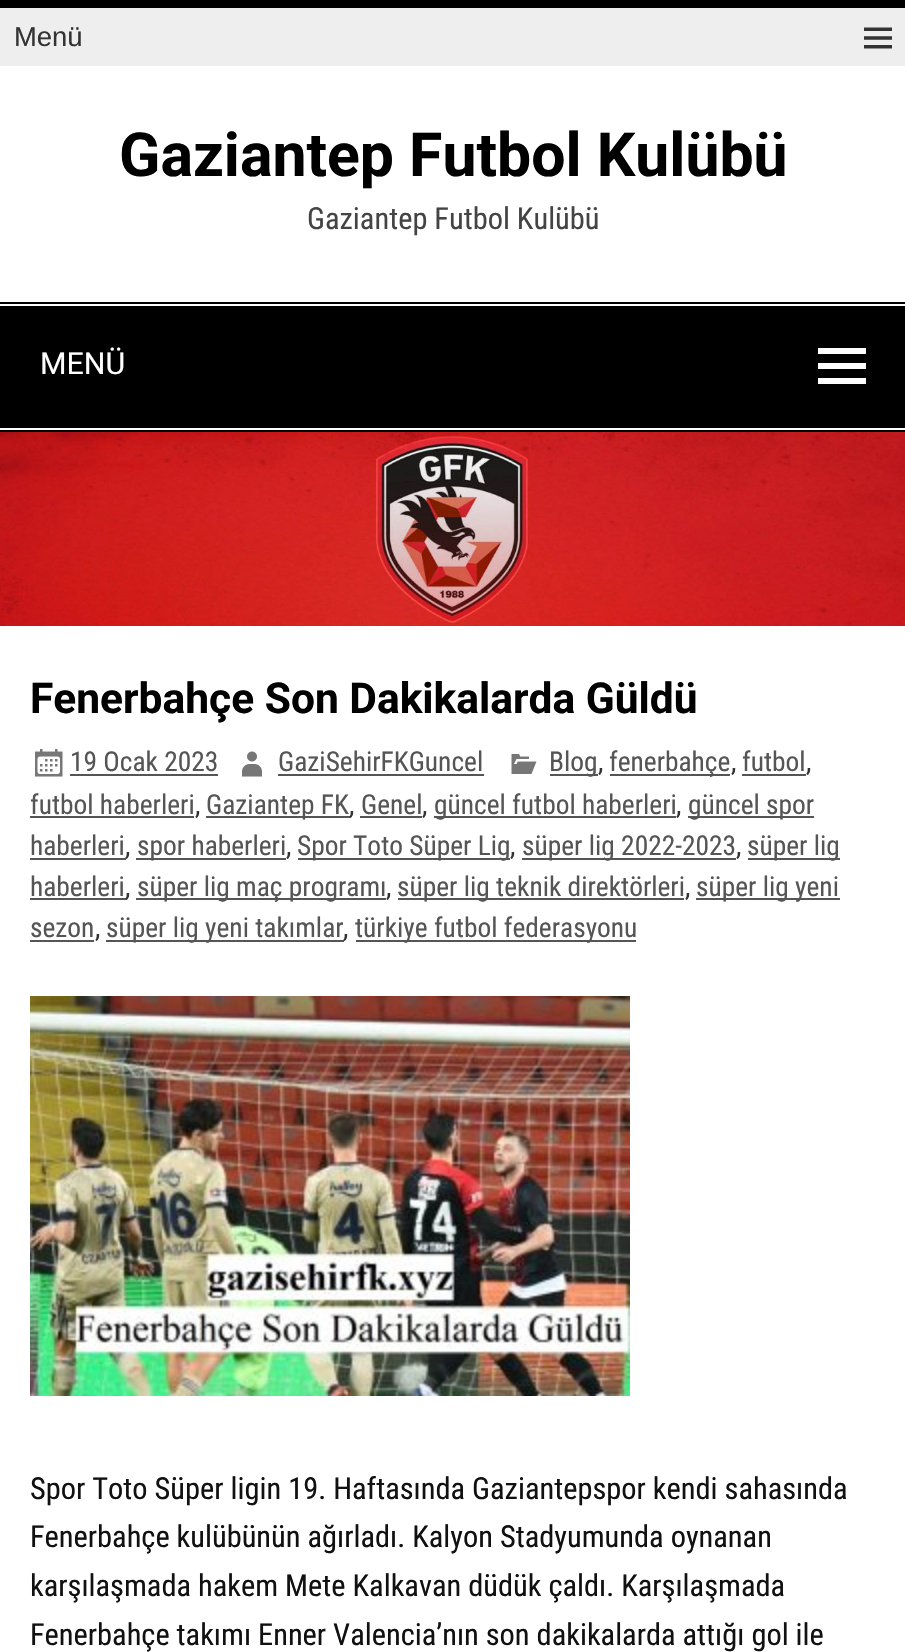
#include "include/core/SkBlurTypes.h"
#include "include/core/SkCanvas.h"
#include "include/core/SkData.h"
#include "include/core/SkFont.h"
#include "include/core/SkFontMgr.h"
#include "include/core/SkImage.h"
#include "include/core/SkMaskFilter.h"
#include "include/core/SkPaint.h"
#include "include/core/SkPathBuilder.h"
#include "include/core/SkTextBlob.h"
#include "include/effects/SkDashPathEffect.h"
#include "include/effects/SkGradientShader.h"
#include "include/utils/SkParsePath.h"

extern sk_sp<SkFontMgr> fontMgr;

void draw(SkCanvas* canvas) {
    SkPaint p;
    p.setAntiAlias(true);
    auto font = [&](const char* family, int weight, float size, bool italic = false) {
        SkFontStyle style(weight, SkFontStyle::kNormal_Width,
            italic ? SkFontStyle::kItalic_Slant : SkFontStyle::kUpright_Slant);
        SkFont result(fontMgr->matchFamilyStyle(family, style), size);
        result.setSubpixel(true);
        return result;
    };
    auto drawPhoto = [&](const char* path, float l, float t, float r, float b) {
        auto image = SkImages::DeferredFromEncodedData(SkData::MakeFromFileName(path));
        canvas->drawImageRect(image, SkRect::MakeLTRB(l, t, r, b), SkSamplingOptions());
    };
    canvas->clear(0xFFFFFFFF);
    p.setColor(0xFF000000);
    canvas->drawRect(SkRect::MakeLTRB(0, 0, 905, 8), p);
    p.setColor(0xFFEEEEEE);
    canvas->drawRect(SkRect::MakeLTRB(0, 8, 905, 66), p);
    auto font1 = font("Liberation Sans", 400, 27.4f);
    p.setColor(0xFF333333);
    canvas->drawString("Menü", 14, 46, font1, p);
    drawPhoto("media/1.png", 864, 27, 892, 49);
    auto font2 = font("Roboto", 700, 60.75f);
    p.setColor(0xFF000000);
    canvas->drawString("Gaziantep Futbol Kulübü", 119, 176, font2, p);
    auto font3 = font("Roboto Condensed", 400, 30.4f);
    p.setColor(0xFF444444);
    canvas->drawString("Gaziantep Futbol Kulübü", 307, 229, font3, p);
    {
        const struct { float l, t, r, b; SkColor color; } items[] = {
            {0, 302, 905, 304, 0xFF000000},
            {0, 430, 905, 432, 0xFF000000},
            {0, 306, 905, 428, 0xFF000000},
        };
        for (auto [l, t, r, b, color] : items) {
            p.setColor(color);
            canvas->drawRect(SkRect::MakeLTRB(l, t, r, b), p);
        }
    }
    auto font4 = font("Roboto", 400, 30.4f);
    p.setColor(0xFFFFFFFF);
    canvas->drawString("MENÜ", 40, 374, font4, p);
    canvas->drawPath(SkPathBuilder().moveTo(818, 384).lineTo(818, 378).lineTo(866, 378).lineTo(866, 384).close().moveTo(818, 348).lineTo(866, 348).lineTo(866, 354).lineTo(818, 354).close().moveTo(818, 369).lineTo(818, 363).lineTo(866, 363).lineTo(866, 369).close().detach(), p);
    drawPhoto("media/2.png", 0, 432, 905, 626);
    auto font5 = font("Roboto", 700, 42.5f);
    p.setColor(0xFF000000);
    canvas->drawString("Fenerbahçe Son Dakikalarda Güldü", 30, 713, font5, p);
    drawPhoto("media/3.png", 511, 754, 537, 774);
    p.setColor(0xFF555555);
    canvas->drawRect(SkRect::MakeLTRB(550, 774, 598, 776), p);
    auto font6 = font("Roboto Condensed", 400, 27.4f);
    canvas->drawString("Blog", 549, 771, font6, p);
    p.setColor(0xFF333333);
    canvas->drawString(",", 598, 771, font6, p);
    p.setColor(0xFF555555);
    canvas->drawRect(SkRect::MakeLTRB(610, 774, 730, 776), p);
    canvas->drawString("fenerbahçe", 609, 771, font6, p);
    p.setColor(0xFF333333);
    canvas->drawString(",", 731, 771, font6, p);
    p.setColor(0xFF555555);
    canvas->drawString("futbol", 742, 771, font6, p);
    canvas->drawRect(SkRect::MakeLTRB(742, 774, 806, 776), p);
    p.setColor(0xFF333333);
    canvas->drawString(",", 806, 771, font6, p);
    p.setColor(0xFF555555);
    canvas->drawString("futbol haberleri", 30, 814, font6, p);
    canvas->drawRect(SkRect::MakeLTRB(30, 816, 194, 818), p);
    p.setColor(0xFF333333);
    canvas->drawString(",", 195, 814, font6, p);
    p.setColor(0xFF555555);
    canvas->drawRect(SkRect::MakeLTRB(206, 816, 350, 818), p);
    canvas->drawString("Gaziantep FK", 206, 814, font6, p);
    p.setColor(0xFF333333);
    canvas->drawString(",", 349, 814, font6, p);
    p.setColor(0xFF555555);
    canvas->drawString("Genel", 361, 814, font6, p);
    canvas->drawRect(SkRect::MakeLTRB(360, 816, 422, 818), p);
    p.setColor(0xFF333333);
    canvas->drawString(",", 422, 814, font6, p);
    p.setColor(0xFF555555);
    canvas->drawRect(SkRect::MakeLTRB(434, 816, 676, 818), p);
    canvas->drawString("güncel futbol haberleri", 434, 814, font6, p);
    p.setColor(0xFF333333);
    canvas->drawString(",", 676, 814, font6, p);
    p.setColor(0xFF555555);
    canvas->drawRect(SkRect::MakeLTRB(688, 816, 814, 818), p);
    canvas->drawString("güncel spor", 688, 814, font6, p);
    canvas->drawString("haberleri", 30, 855, font6, p);
    canvas->drawRect(SkRect::MakeLTRB(30, 858, 126, 860), p);
    p.setColor(0xFF333333);
    canvas->drawString(",", 125, 855, font6, p);
    p.setColor(0xFF555555);
    canvas->drawRect(SkRect::MakeLTRB(136, 858, 286, 860), p);
    canvas->drawString("spor haberleri", 137, 855, font6, p);
    p.setColor(0xFF333333);
    canvas->drawString(",", 286, 855, font6, p);
    p.setColor(0xFF555555);
    canvas->drawRect(SkRect::MakeLTRB(298, 858, 510, 860), p);
    canvas->drawString("Spor Toto Süper Lig", 297, 855, font6, p);
    p.setColor(0xFF333333);
    canvas->drawString(",", 510, 855, font6, p);
    p.setColor(0xFF555555);
    canvas->drawRect(SkRect::MakeLTRB(522, 858, 736, 860), p);
    canvas->drawString("süper lig 2022-2023", 522, 855, font6, p);
    p.setColor(0xFF333333);
    canvas->drawString(",", 736, 855, font6, p);
    p.setColor(0xFF555555);
    canvas->drawRect(SkRect::MakeLTRB(748, 858, 840, 860), p);
    canvas->drawString("süper lig", 747, 855, font6, p);
    canvas->drawString("haberleri", 30, 896, font6, p);
    canvas->drawRect(SkRect::MakeLTRB(30, 898, 126, 900), p);
    p.setColor(0xFF333333);
    canvas->drawString(",", 125, 896, font6, p);
    p.setColor(0xFF555555);
    canvas->drawRect(SkRect::MakeLTRB(136, 898, 386, 900), p);
    canvas->drawString("süper lig maç programı", 137, 896, font6, p);
    p.setColor(0xFF333333);
    canvas->drawString(",", 386, 896, font6, p);
    p.setColor(0xFF555555);
    canvas->drawRect(SkRect::MakeLTRB(398, 898, 684, 900), p);
    canvas->drawString("süper lig teknik direktörleri", 397, 896, font6, p);
    p.setColor(0xFF333333);
    canvas->drawString(",", 685, 896, font6, p);
    p.setColor(0xFF555555);
    canvas->drawRect(SkRect::MakeLTRB(696, 898, 840, 900), p);
    canvas->drawString("süper lig yeni", 696, 896, font6, p);
    canvas->drawString("sezon", 30, 937, font6, p);
    canvas->drawRect(SkRect::MakeLTRB(30, 940, 94, 942), p);
    p.setColor(0xFF333333);
    canvas->drawString(",", 95, 937, font6, p);
    p.setColor(0xFF555555);
    canvas->drawRect(SkRect::MakeLTRB(106, 940, 344, 942), p);
    canvas->drawString("süper lig yeni takımlar", 106, 937, font6, p);
    p.setColor(0xFF333333);
    canvas->drawString(",", 343, 937, font6, p);
    p.setColor(0xFF555555);
    canvas->drawRect(SkRect::MakeLTRB(356, 940, 636, 942), p);
    canvas->drawString("türkiye futbol federasyonu", 355, 937, font6, p);
    drawPhoto("media/4.png", 35, 749, 63, 777);
    canvas->drawString("19 Ocak 2023", 70, 771, font6, p);
    canvas->drawRect(SkRect::MakeLTRB(70, 774, 218, 776), p);
    drawPhoto("media/5.png", 242, 751, 262, 777);
    canvas->drawString("GaziSehirFKGuncel", 278, 771, font6, p);
    canvas->drawRect(SkRect::MakeLTRB(278, 774, 484, 776), p);
    drawPhoto("media/6.png", 30, 996, 630, 1396);
    p.setColor(0xFF111111);
    {
        const struct { const char* s; float x, y; } items[] = {
            {"Spor Toto Süper ligin 19. Haftasında Gaziantepspor kendi sahasında", 30, 1499},
            {"Fenerbahçe kulübünün ağırladı. Kalyon Stadyumunda oynanan", 30, 1547},
            {"karşılaşmada hakem Mete Kalkavan düdük çaldı. Karşılaşmada", 30, 1596},
            {"Fenerbahçe takımı Enner Valencia’nın son dakikalarda attığı gol ile", 30, 1645},
        };
        for (auto [s, x, y] : items) {
            canvas->drawString(s, x, y, font3, p);
        }
    }
}
